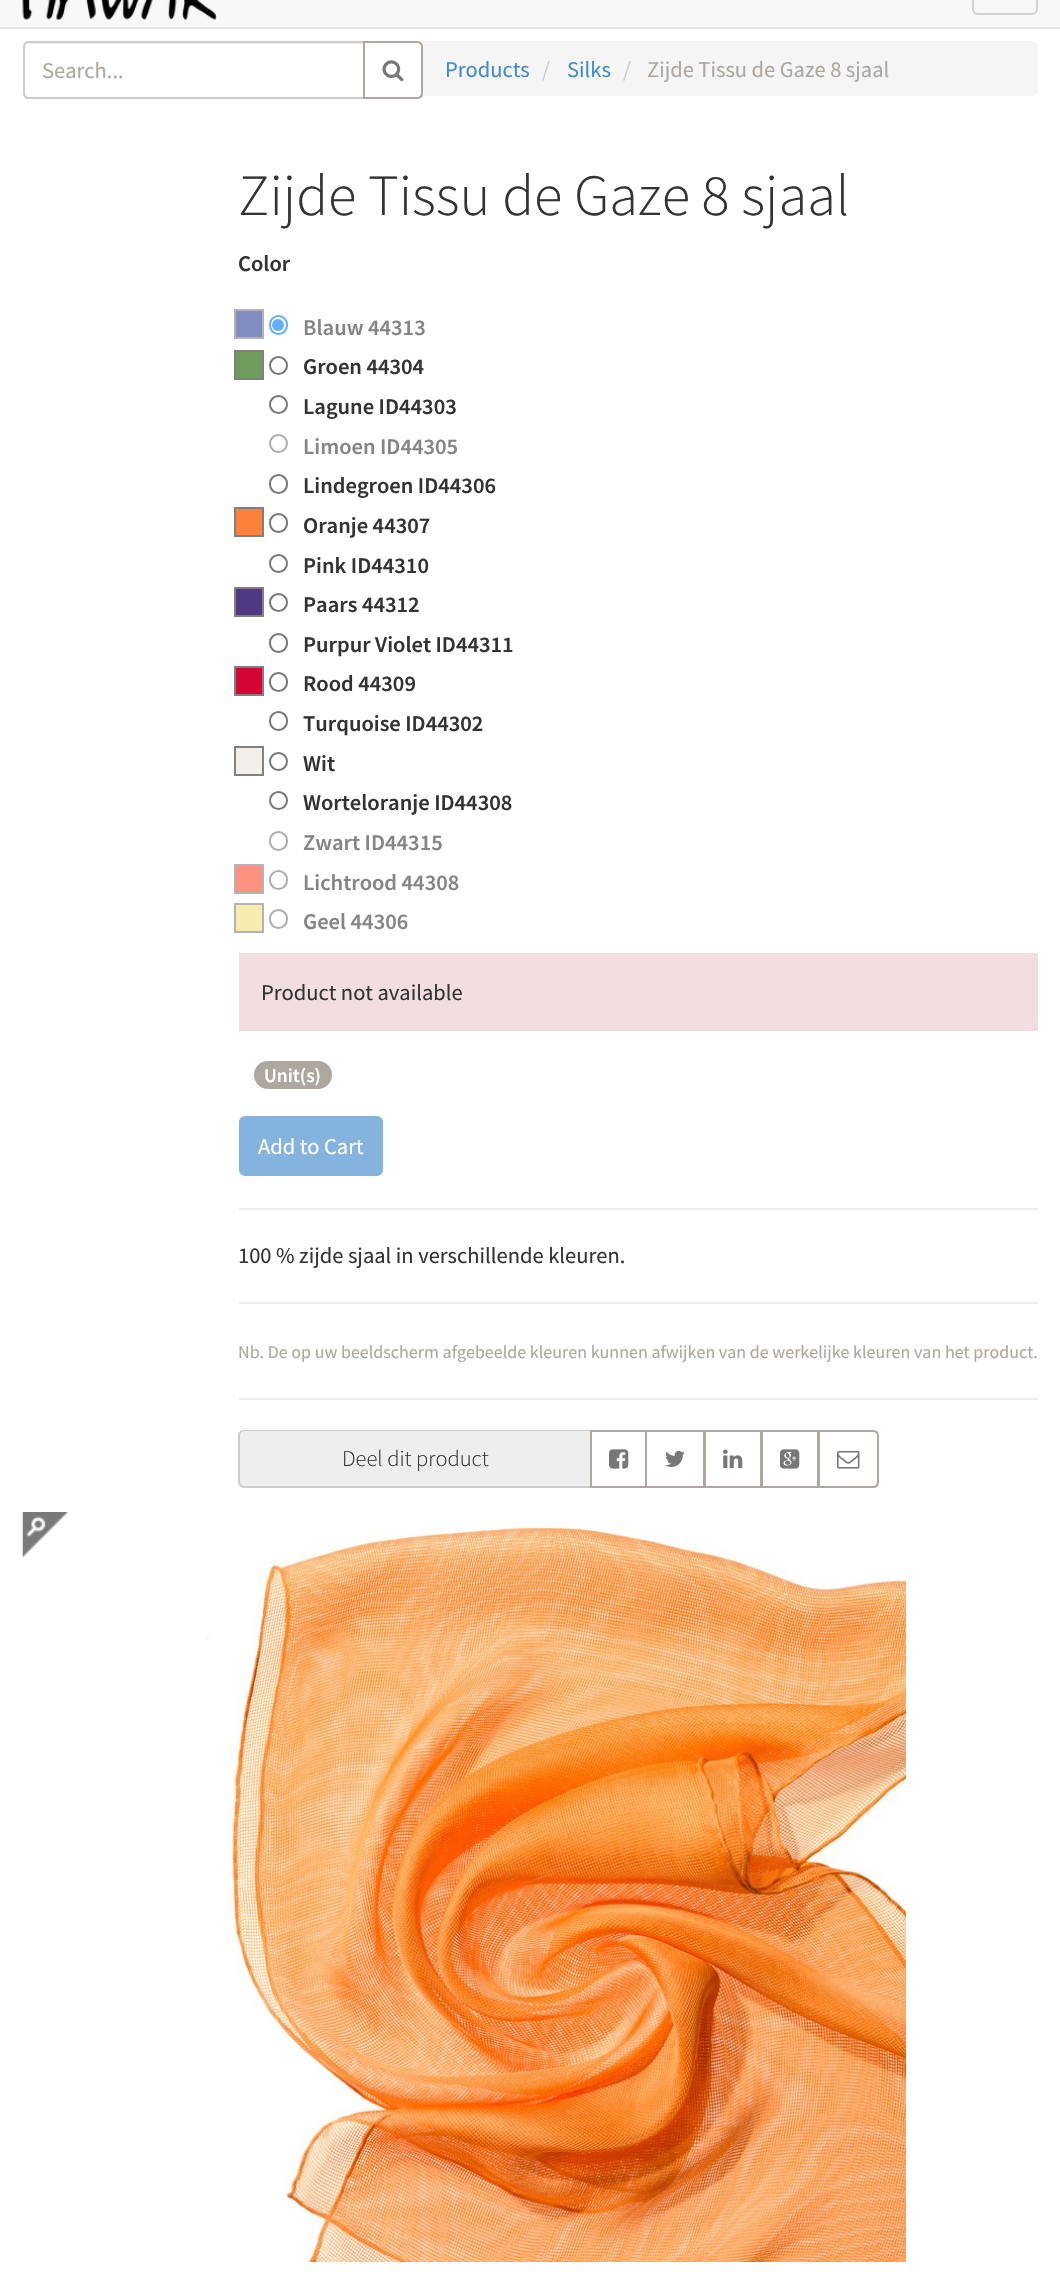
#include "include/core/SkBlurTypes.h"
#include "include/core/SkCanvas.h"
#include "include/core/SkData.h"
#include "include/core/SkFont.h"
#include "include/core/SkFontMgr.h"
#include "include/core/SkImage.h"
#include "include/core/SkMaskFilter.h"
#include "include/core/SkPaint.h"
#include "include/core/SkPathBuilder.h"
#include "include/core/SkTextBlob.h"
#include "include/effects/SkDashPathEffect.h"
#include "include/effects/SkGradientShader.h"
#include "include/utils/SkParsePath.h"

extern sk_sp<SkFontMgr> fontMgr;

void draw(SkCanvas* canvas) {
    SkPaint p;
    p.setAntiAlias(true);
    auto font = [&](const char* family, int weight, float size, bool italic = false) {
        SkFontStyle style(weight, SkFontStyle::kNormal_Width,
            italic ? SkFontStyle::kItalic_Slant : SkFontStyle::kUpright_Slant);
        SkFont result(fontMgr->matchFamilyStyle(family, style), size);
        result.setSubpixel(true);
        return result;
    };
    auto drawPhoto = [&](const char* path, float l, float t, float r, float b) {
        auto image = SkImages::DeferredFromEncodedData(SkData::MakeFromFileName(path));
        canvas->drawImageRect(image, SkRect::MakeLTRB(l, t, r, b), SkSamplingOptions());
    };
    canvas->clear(0xFFFFFFFF);
    p.setColor(0xFFF8F8F8);
    canvas->drawRect(SkRect::MakeLTRB(0, 0, 1060, 27), p);
    p.setColor(0xFFE7E7E7);
    canvas->drawRect(SkRect::MakeLTRB(0, 27, 1060, 29), p);
    drawPhoto("media/1.png", 22, 0, 217, 20);
    p.setStyle(SkPaint::kStroke_Style);
    p.setStrokeWidth(2);
    p.setColor(0xFFD2D2D2);
    canvas->drawRoundRect(SkRect::MakeLTRB(973, -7, 1037, 14), 5, 5, p);
    p.setStyle(SkPaint::kFill_Style);
    p.setColor(0xFFF5F5F5);
    canvas->drawRoundRect(SkRect::MakeLTRB(23, 41, 1038, 96), 6, 6, p);
    p.setColor(0xFFFFFFFF);
    canvas->drawPath(SkPathBuilder().moveTo(29, 41).lineTo(365, 41).lineTo(365, 99).lineTo(29, 99).cubicTo(25.5f, 99, 23, 96.5f, 23, 93).lineTo(23, 47).cubicTo(23, 43.5f, 25.5f, 41, 29, 41).close().detach(), p);
    p.setColor(0xFFECECEC);
    canvas->drawPath(SkPathBuilder().moveTo(28, 44).lineTo(363, 44).lineTo(363, 42).lineTo(29, 42).cubicTo(26, 42, 24, 45, 24, 48).cubicTo(24, 46, 26, 44, 28, 44).close().detach(), p);
    p.setStyle(SkPaint::kStroke_Style);
    p.setColor(0xFFCCCCCC);
    canvas->drawPath(SkPathBuilder().moveTo(29, 42).lineTo(364, 42).lineTo(364, 98).lineTo(29, 98).cubicTo(26, 98, 24, 96, 24, 93).lineTo(24, 47).cubicTo(24, 44, 26, 42, 29, 42).close().detach(), p);
    auto font1 = font("Source Sans Pro", 400, 22.5f);
    p.setStyle(SkPaint::kFill_Style);
    p.setColor(0xFFAEA79F);
    canvas->drawString("Search...", 42, 78, font1, p);
    p.setColor(0xFFFFFFFF);
    canvas->drawPath(SkPathBuilder().moveTo(364, 42).lineTo(417, 42).cubicTo(420, 42, 422, 44, 422, 47).lineTo(422, 93).cubicTo(422, 96, 420, 98, 417, 98).lineTo(364, 98).close().detach(), p);
    p.setStyle(SkPaint::kStroke_Style);
    p.setColor(0xFFAEA79F);
    canvas->drawPath(SkPathBuilder().moveTo(364, 42).lineTo(417, 42).cubicTo(420, 42, 422, 44, 422, 47).lineTo(422, 93).cubicTo(422, 96, 420, 98, 417, 98).lineTo(364, 98).close().detach(), p);
    drawPhoto("media/2.png", 382, 60, 404, 82);
    p.setStyle(SkPaint::kFill_Style);
    p.setColor(0xFF428BCA);
    canvas->drawString("Products", 445, 77, font1, p);
    p.setColor(0xFFCCCCCC);
    canvas->drawString("/", 542, 77, font1, p);
    p.setColor(0xFF428BCA);
    canvas->drawString("Silks", 567, 77, font1, p);
    p.setColor(0xFFCCCCCC);
    canvas->drawString("/", 623, 77, font1, p);
    p.setColor(0xFFAEA79F);
    canvas->drawString("Zijde Tissu de Gaze 8 sjaal", 647, 77, font1, p);
    auto font2 = font("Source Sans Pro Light", 300, 58.5f);
    p.setColor(0xFF333333);
    canvas->drawString("Zijde Tissu de Gaze 8 sjaal", 238, 215, font2, p);
    auto font3 = font("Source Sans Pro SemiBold", 600, 22.5f);
    canvas->drawString("Color", 238, 271, font3, p);
    p.setColor(0xFF808DBE);
    canvas->drawRect(SkRect::MakeLTRB(235, 310, 263, 338), p);
    p.setStyle(SkPaint::kStroke_Style);
    p.setColor(0xFFB3B3B3);
    canvas->drawRect(SkRect::MakeLTRB(235, 310, 263, 338), p);
    p.setColor(0xFF66ACFF);
    canvas->drawRoundRect(SkRect::MakeLTRB(270, 316, 287, 334), 8.5f, 8.5f, p);
    p.setStyle(SkPaint::kFill_Style);
    canvas->drawCircle(278, 325, 6, p);
    p.setColor(0xFF858585);
    canvas->drawString("Blauw 44313", 303, 335, font3, p);
    p.setColor(0xFF6E9C5D);
    canvas->drawRect(SkRect::MakeLTRB(235, 351, 263, 379), p);
    p.setStyle(SkPaint::kStroke_Style);
    p.setColor(0xFF808080);
    canvas->drawRect(SkRect::MakeLTRB(235, 351, 263, 379), p);
    p.setColor(0xFF767676);
    canvas->drawCircle(278.5f, 365.5f, 8.5f, p);
    p.setStyle(SkPaint::kFill_Style);
    p.setColor(0xFF333333);
    canvas->drawString("Groen 44304", 303, 374, font3, p);
    p.setStyle(SkPaint::kStroke_Style);
    p.setColor(0xFF767676);
    canvas->drawCircle(278.5f, 404.5f, 8.5f, p);
    p.setStyle(SkPaint::kFill_Style);
    p.setColor(0xFF333333);
    canvas->drawString("Lagune ID44303", 303, 414, font3, p);
    p.setStyle(SkPaint::kStroke_Style);
    p.setColor(0xFFADADAD);
    canvas->drawCircle(278.5f, 443.5f, 8.5f, p);
    p.setStyle(SkPaint::kFill_Style);
    p.setColor(0xFF858585);
    canvas->drawString("Limoen ID44305", 303, 454, font3, p);
    p.setStyle(SkPaint::kStroke_Style);
    p.setColor(0xFF767676);
    canvas->drawRoundRect(SkRect::MakeLTRB(270, 475, 287, 493), 8.5f, 8.5f, p);
    p.setStyle(SkPaint::kFill_Style);
    p.setColor(0xFF333333);
    canvas->drawString("Lindegroen ID44306", 303, 493, font3, p);
    p.setColor(0xFFFB8238);
    canvas->drawRect(SkRect::MakeLTRB(235, 508, 263, 536), p);
    p.setStyle(SkPaint::kStroke_Style);
    p.setColor(0xFF808080);
    canvas->drawRect(SkRect::MakeLTRB(235, 508, 263, 536), p);
    p.setColor(0xFF767676);
    canvas->drawRoundRect(SkRect::MakeLTRB(270, 514, 287, 532), 8.5f, 8.5f, p);
    p.setStyle(SkPaint::kFill_Style);
    p.setColor(0xFF333333);
    canvas->drawString("Oranje 44307", 303, 533, font3, p);
    p.setStyle(SkPaint::kStroke_Style);
    p.setColor(0xFF767676);
    canvas->drawCircle(278.5f, 563.5f, 8.5f, p);
    p.setStyle(SkPaint::kFill_Style);
    p.setColor(0xFF333333);
    canvas->drawString("Pink ID44310", 303, 573, font3, p);
    p.setColor(0xFF4F3884);
    canvas->drawRect(SkRect::MakeLTRB(235, 588, 263, 616), p);
    p.setStyle(SkPaint::kStroke_Style);
    p.setColor(0xFF808080);
    canvas->drawRect(SkRect::MakeLTRB(235, 588, 263, 616), p);
    p.setColor(0xFF767676);
    canvas->drawCircle(278.5f, 602.5f, 8.5f, p);
    p.setStyle(SkPaint::kFill_Style);
    p.setColor(0xFF333333);
    canvas->drawString("Paars 44312", 303, 612, font3, p);
    p.setStyle(SkPaint::kStroke_Style);
    p.setColor(0xFF767676);
    canvas->drawRoundRect(SkRect::MakeLTRB(270, 634, 287, 652), 8.5f, 8.5f, p);
    p.setStyle(SkPaint::kFill_Style);
    p.setColor(0xFF333333);
    canvas->drawString("Purpur Violet ID44311", 303, 652, font3, p);
    p.setColor(0xFFD50336);
    canvas->drawRect(SkRect::MakeLTRB(235, 667, 263, 695), p);
    p.setStyle(SkPaint::kStroke_Style);
    p.setColor(0xFF808080);
    canvas->drawRect(SkRect::MakeLTRB(235, 667, 263, 695), p);
    p.setColor(0xFF767676);
    canvas->drawRoundRect(SkRect::MakeLTRB(270, 673, 287, 691), 8.5f, 8.5f, p);
    p.setStyle(SkPaint::kFill_Style);
    p.setColor(0xFF333333);
    canvas->drawString("Rood 44309", 303, 691, font3, p);
    p.setStyle(SkPaint::kStroke_Style);
    p.setColor(0xFF767676);
    canvas->drawRoundRect(SkRect::MakeLTRB(270, 712, 287, 730), 8.5f, 8.5f, p);
    p.setStyle(SkPaint::kFill_Style);
    p.setColor(0xFF333333);
    canvas->drawString("Turquoise ID44302", 303, 731, font3, p);
    p.setColor(0xFFF2EEEA);
    canvas->drawRect(SkRect::MakeLTRB(235, 747, 263, 775), p);
    p.setStyle(SkPaint::kStroke_Style);
    p.setColor(0xFF808080);
    canvas->drawRect(SkRect::MakeLTRB(235, 747, 263, 775), p);
    p.setColor(0xFF767676);
    canvas->drawCircle(278.5f, 761.5f, 8.5f, p);
    p.setStyle(SkPaint::kFill_Style);
    p.setColor(0xFF333333);
    canvas->drawString("Wit", 303, 771, font3, p);
    p.setStyle(SkPaint::kStroke_Style);
    p.setColor(0xFF767676);
    canvas->drawCircle(278.5f, 800.5f, 8.5f, p);
    p.setStyle(SkPaint::kFill_Style);
    p.setColor(0xFF333333);
    canvas->drawString("Worteloranje ID44308", 303, 810, font3, p);
    p.setStyle(SkPaint::kStroke_Style);
    p.setColor(0xFFADADAD);
    canvas->drawRoundRect(SkRect::MakeLTRB(270, 832, 287, 850), 8.5f, 8.5f, p);
    p.setStyle(SkPaint::kFill_Style);
    p.setColor(0xFF858585);
    canvas->drawString("Zwart ID44315", 303, 850, font3, p);
    p.setColor(0xFFFE9180);
    canvas->drawRect(SkRect::MakeLTRB(235, 865, 263, 893), p);
    p.setStyle(SkPaint::kStroke_Style);
    p.setColor(0xFFB3B3B3);
    canvas->drawRect(SkRect::MakeLTRB(235, 865, 263, 893), p);
    p.setColor(0xFFADADAD);
    canvas->drawRoundRect(SkRect::MakeLTRB(270, 871, 287, 889), 8.5f, 8.5f, p);
    p.setStyle(SkPaint::kFill_Style);
    p.setColor(0xFF858585);
    canvas->drawString("Lichtrood 44308", 303, 890, font3, p);
    p.setColor(0xFFF6ECB0);
    canvas->drawRect(SkRect::MakeLTRB(235, 904, 263, 932), p);
    p.setStyle(SkPaint::kStroke_Style);
    p.setColor(0xFFB3B3B3);
    canvas->drawRect(SkRect::MakeLTRB(235, 904, 263, 932), p);
    p.setColor(0xFFADADAD);
    canvas->drawRoundRect(SkRect::MakeLTRB(270, 910, 287, 928), 8.5f, 8.5f, p);
    p.setStyle(SkPaint::kFill_Style);
    p.setColor(0xFF858585);
    canvas->drawString("Geel 44306", 303, 929, font3, p);
    p.setColor(0xFFF2DEDE);
    canvas->drawRect(SkRect::MakeLTRB(239, 953, 1038, 1031), p);
    p.setColor(0xFF333333);
    canvas->drawString("Product not available", 261, 1000, font1, p);
    p.setColor(0xFFAEA79F);
    canvas->drawRoundRect(SkRect::MakeLTRB(254, 1061, 332, 1089), 14, 14, p);
    auto font4 = font("Source Sans Pro SemiBold", 600, 19.5f);
    p.setColor(0xFFFFFFFF);
    canvas->drawString("Unit(s)", 264, 1082, font4, p);
    p.setColor(0xFF84B4DD);
    canvas->drawRoundRect(SkRect::MakeLTRB(240, 1117, 382, 1175), 5, 5, p);
    p.setStyle(SkPaint::kStroke_Style);
    canvas->drawRoundRect(SkRect::MakeLTRB(240, 1117, 382, 1175), 5, 5, p);
    p.setStyle(SkPaint::kFill_Style);
    p.setColor(0xFFFFFFFF);
    canvas->drawString("Add to Cart", 258, 1154, font1, p);
    p.setColor(0xFFEEEEEE);
    canvas->drawRect(SkRect::MakeLTRB(239, 1208, 1038, 1210), p);
    p.setColor(0xFF333333);
    canvas->drawString("100 % zijde sjaal in verschillende kleuren.", 238, 1263, font1, p);
    p.setColor(0xFFEEEEEE);
    canvas->drawRect(SkRect::MakeLTRB(239, 1302, 1038, 1304), p);
    auto font5 = font("Source Sans Pro", 400, 18);
    p.setColor(0xFFAEA79F);
    canvas->drawString("Nb. De op uw beeldscherm afgebeelde kleuren kunnen afwijken van de werkelijke kleuren van het product.", 238, 1358, font5, p);
    p.setColor(0xFFEEEEEE);
    canvas->drawRect(SkRect::MakeLTRB(239, 1398, 1038, 1400), p);
    canvas->drawPath(SkPathBuilder().moveTo(245, 1430).lineTo(591, 1430).lineTo(591, 1488).lineTo(245, 1488).cubicTo(241.5f, 1488, 239, 1485.5f, 239, 1482).lineTo(239, 1436).cubicTo(239, 1432.5f, 241.5f, 1430, 245, 1430).close().detach(), p);
    p.setColor(0xFFCCCCCC);
    canvas->drawPath(SkPathBuilder(SkPathFillType::kEvenOdd).moveTo(244, 1430).lineTo(591, 1430).lineTo(591, 1488).lineTo(244, 1488).cubicTo(241, 1488, 238, 1485, 238, 1482).lineTo(238, 1436).cubicTo(238, 1432, 241, 1430, 244, 1430).close().moveTo(244, 1431).lineTo(591, 1431).lineTo(591, 1486).lineTo(244, 1486).cubicTo(242, 1486, 240, 1484, 240, 1482).lineTo(240, 1436).cubicTo(240, 1433, 242, 1431, 244, 1431).close().detach(), p);
    auto font6 = font("Source Sans Pro Light", 300, 22.5f);
    p.setColor(0xFF333333);
    canvas->drawString("Deel dit product", 342, 1466, font6, p);
    p.setStyle(SkPaint::kStroke_Style);
    p.setColor(0xFFAEA79F);
    canvas->drawRect(SkRect::MakeLTRB(591, 1431, 646, 1487), p);
    drawPhoto("media/3.png", 609, 1449, 629, 1469);
    canvas->drawRect(SkRect::MakeLTRB(646, 1431, 704, 1487), p);
    drawPhoto("media/4.png", 665, 1450, 685, 1467);
    canvas->drawRect(SkRect::MakeLTRB(705, 1431, 761, 1487), p);
    drawPhoto("media/5.png", 723, 1449, 743, 1468);
    canvas->drawRect(SkRect::MakeLTRB(762, 1431, 818, 1487), p);
    drawPhoto("media/6.png", 780, 1449, 800, 1469);
    p.setStyle(SkPaint::kFill_Style);
    p.setColor(0xFFFFFFFF);
    canvas->drawPath(SkPathBuilder().moveTo(819, 1431).lineTo(873, 1431).cubicTo(876, 1431, 878, 1433, 878, 1436).lineTo(878, 1482).cubicTo(878, 1485, 876, 1487, 873, 1487).lineTo(819, 1487).close().detach(), p);
    p.setStyle(SkPaint::kStroke_Style);
    p.setColor(0xFFAEA79F);
    canvas->drawPath(SkPathBuilder().moveTo(819, 1431).lineTo(873, 1431).cubicTo(876, 1431, 878, 1433, 878, 1436).lineTo(878, 1482).cubicTo(878, 1485, 876, 1487, 873, 1487).lineTo(819, 1487).close().detach(), p);
    drawPhoto("media/7.png", 837, 1450, 860, 1469);
    drawPhoto("media/8.png", 22, 1512, 68, 1558);
    drawPhoto("media/9.png", 206, 1527, 906, 2262);
}
